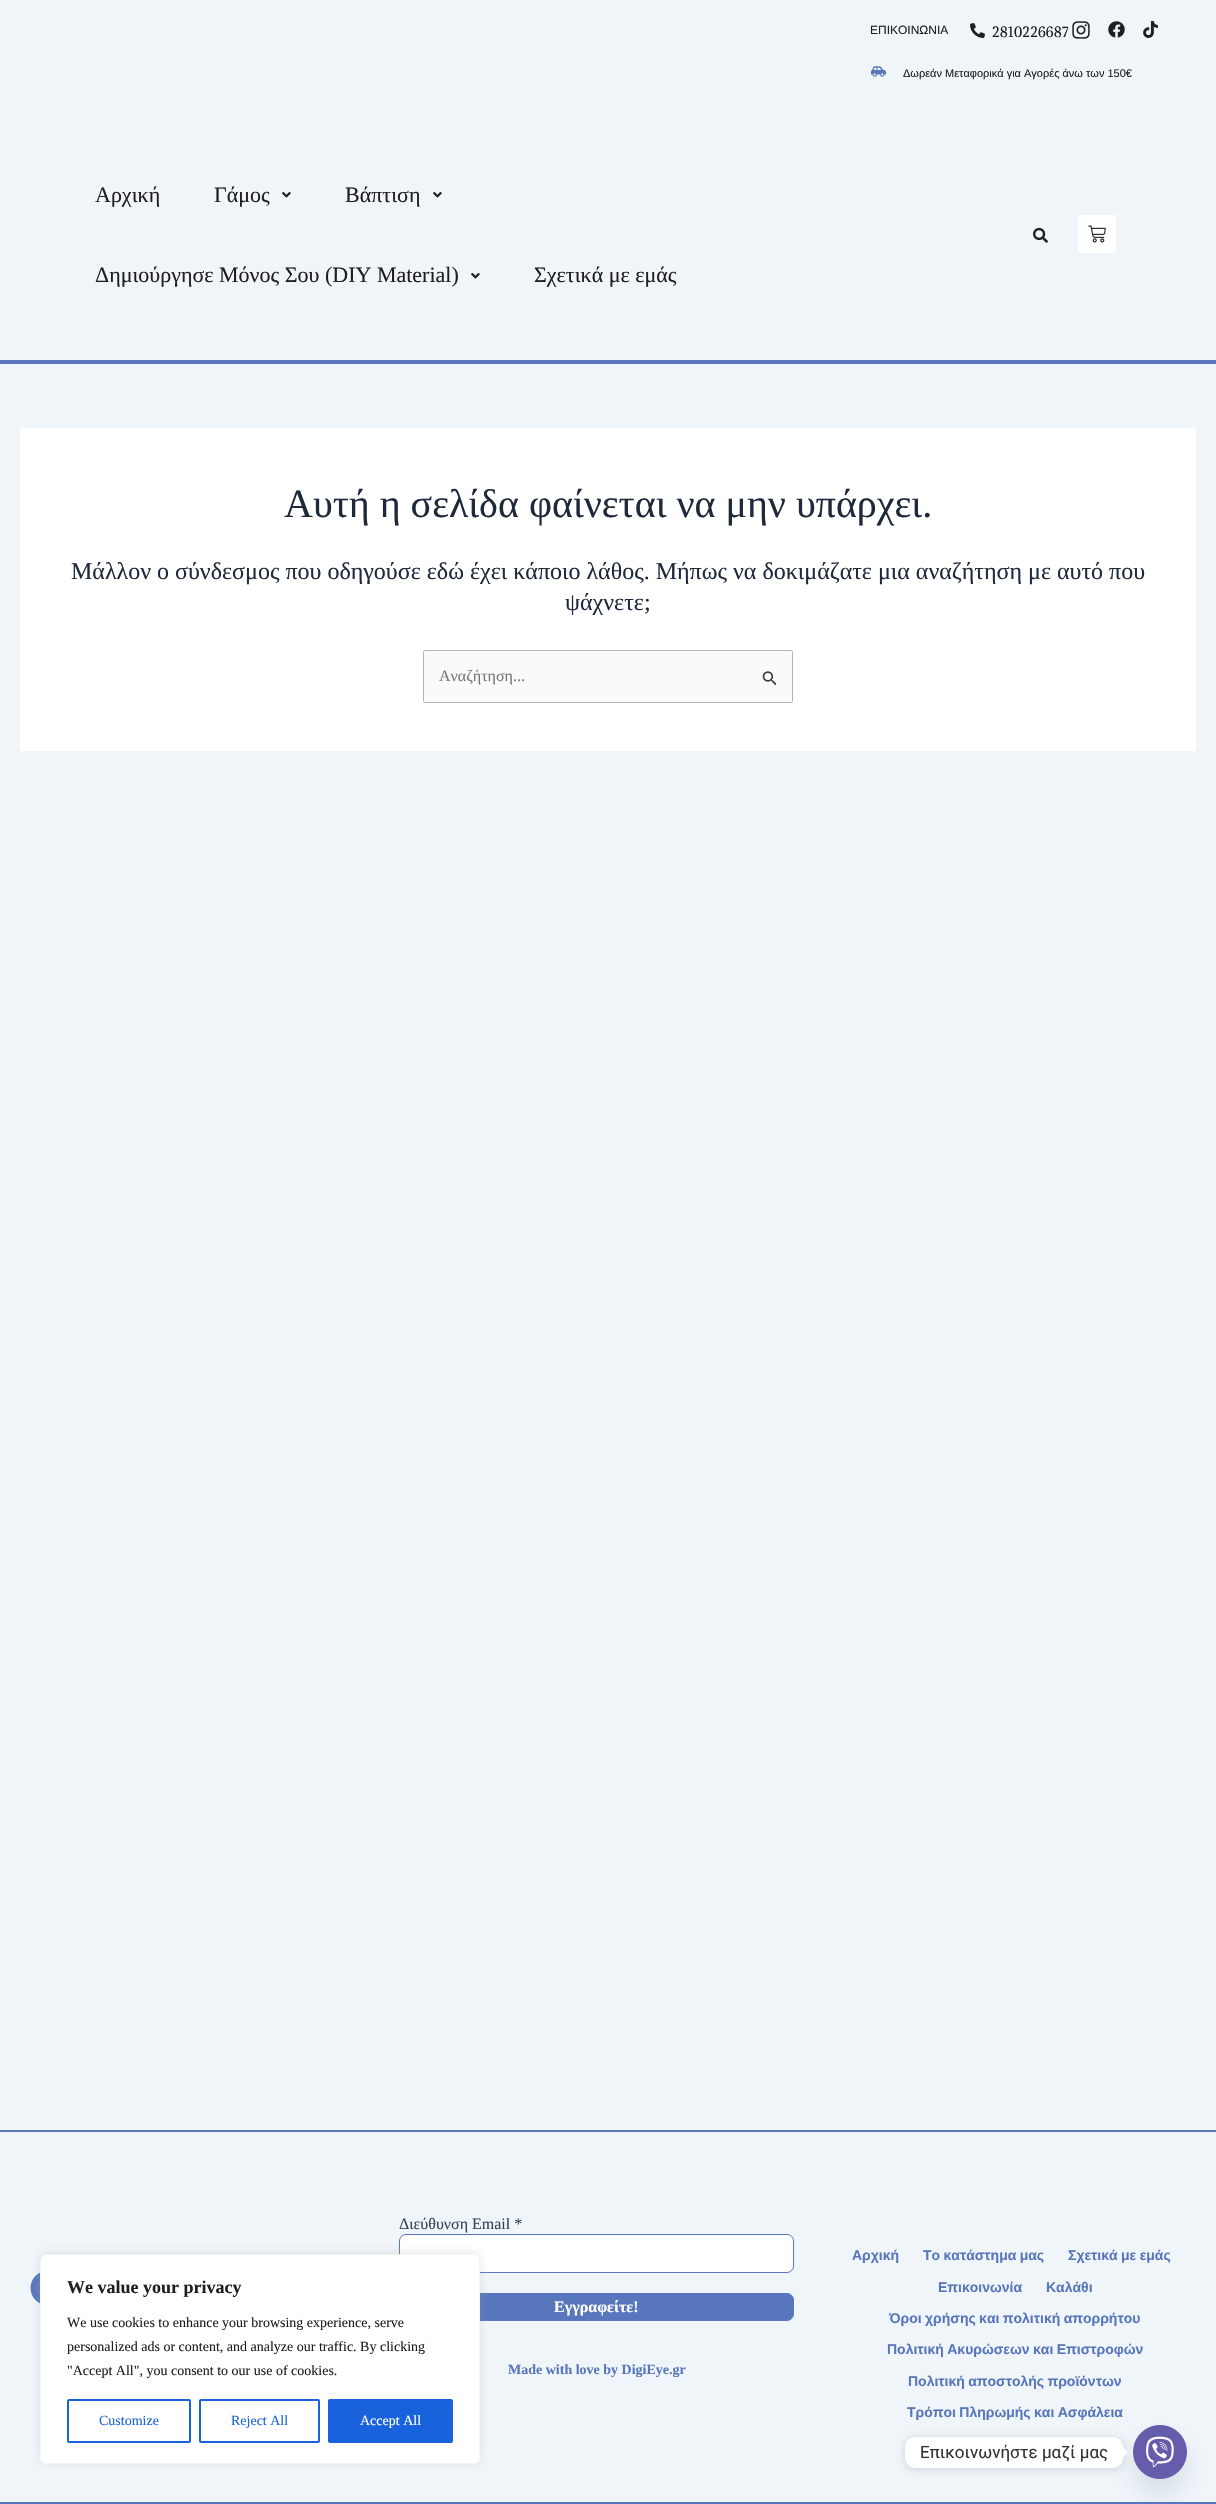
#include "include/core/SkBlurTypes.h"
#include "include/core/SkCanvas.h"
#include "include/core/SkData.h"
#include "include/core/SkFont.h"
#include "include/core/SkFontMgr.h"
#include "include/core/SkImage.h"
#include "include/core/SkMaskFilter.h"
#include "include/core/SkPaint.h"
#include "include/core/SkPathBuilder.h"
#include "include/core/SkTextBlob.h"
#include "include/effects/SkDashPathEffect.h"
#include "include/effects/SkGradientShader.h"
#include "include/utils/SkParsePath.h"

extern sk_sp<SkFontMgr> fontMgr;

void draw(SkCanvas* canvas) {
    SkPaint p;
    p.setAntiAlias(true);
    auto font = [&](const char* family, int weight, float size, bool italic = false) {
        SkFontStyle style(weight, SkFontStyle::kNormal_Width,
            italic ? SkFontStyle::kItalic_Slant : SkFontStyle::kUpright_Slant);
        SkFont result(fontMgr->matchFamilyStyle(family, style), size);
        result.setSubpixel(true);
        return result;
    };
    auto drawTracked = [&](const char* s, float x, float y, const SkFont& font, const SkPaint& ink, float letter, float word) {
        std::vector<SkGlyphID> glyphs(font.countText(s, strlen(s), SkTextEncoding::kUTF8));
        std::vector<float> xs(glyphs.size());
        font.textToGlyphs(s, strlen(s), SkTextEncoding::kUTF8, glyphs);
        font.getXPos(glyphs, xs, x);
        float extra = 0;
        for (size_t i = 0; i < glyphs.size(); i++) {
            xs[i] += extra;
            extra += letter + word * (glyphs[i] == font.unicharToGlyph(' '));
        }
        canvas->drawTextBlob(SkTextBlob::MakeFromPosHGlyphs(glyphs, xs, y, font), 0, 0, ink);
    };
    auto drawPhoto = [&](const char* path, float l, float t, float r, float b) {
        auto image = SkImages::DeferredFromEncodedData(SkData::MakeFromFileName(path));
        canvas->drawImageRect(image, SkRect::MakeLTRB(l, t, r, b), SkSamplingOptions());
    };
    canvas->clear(0xFFF0F5FA);
    auto font1 = font("Liberation Sans", 400, 12);
    p.setColor(0xFF201F1F);
    canvas->drawString("ΕΠΙΚΟΙΝΩΝΙΑ", 870, 34, font1, p);
    drawPhoto("media/1.png", 970, 23, 985, 38);
    auto font2 = font("Adamina", 400, 13);
    canvas->drawString("2810226687", 992, 37, font2, p);
    drawPhoto("media/2.png", 1072, 21, 1090, 39);
    drawPhoto("media/3.png", 1108, 21, 1125, 38);
    drawPhoto("media/4.png", 1143, 21, 1158, 38);
    drawPhoto("media/5.png", 871, 66, 886, 77);
    auto font3 = font("Liberation Sans", 400, 11);
    canvas->drawString("Δωρεάν Μεταφορικά για Αγορές άνω των 150€", 903, 77, font3, p);
    p.setColor(0xFF5776BB);
    canvas->drawRect(SkRect::MakeLTRB(0, 360, 1216, 364), p);
    auto font4 = font("Liberation Serif", 400, 22);
    p.setColor(0xFF201F1F);
    canvas->drawString("Αρχική", 95, 202, font4, p);
    canvas->drawString("Γάμος", 214, 202, font4, p);
    drawPhoto("media/6.png", 282, 192, 291, 198);
    canvas->drawString("Βάπτιση", 345, 202, font4, p);
    drawPhoto("media/6.png", 433, 192, 442, 198);
    canvas->drawString("Δημιούργησε Μόνος Σου (DIY Material)", 95, 282, font4, p);
    drawPhoto("media/6.png", 471, 273, 480, 279);
    canvas->drawString("Σχετικά με εμάς", 534, 282, font4, p);
    drawPhoto("media/7.png", 1033, 227, 1048, 243);
    p.setColor(0xFFFFFFFF);
    canvas->drawRect(SkRect::MakeLTRB(1078, 215, 1116, 253), p);
    drawPhoto("media/8.png", 1088, 225, 1106, 243);
    canvas->drawRect(SkRect::MakeLTRB(20, 428, 1196, 751), p);
    auto font5 = font("Liberation Serif", 400, 40);
    p.setColor(0xFF1E293B);
    canvas->drawString("Αυτή η σελίδα φαίνεται να μην υπάρχει.", 284, 517, font5, p);
    auto font6 = font("Liberation Serif", 400, 24);
    canvas->drawString("Μάλλον ο σύνδεσμος που οδηγούσε εδώ έχει κάποιο λάθος. Μήπως να δοκιμάζατε μια αναζήτηση με αυτό που", 71, 579, font6, p);
    canvas->drawString("ψάχνετε;", 565, 610, font6, p);
    p.setColor(0xFFFAFAFA);
    canvas->drawRoundRect(SkRect::MakeLTRB(423.5f, 650.5f, 792.5f, 702.5f), 1.5f, 1.5f, p);
    p.setStyle(SkPaint::kStroke_Style);
    p.setStrokeWidth(1);
    p.setColor(0xFFADB6BE);
    canvas->drawRoundRect(SkRect::MakeLTRB(423.5f, 650.5f, 792.5f, 702.5f), 1.5f, 1.5f, p);
    auto font7 = font("Liberation Serif", 400, 16);
    p.setStyle(SkPaint::kFill_Style);
    p.setColor(0xFF757575);
    canvas->drawString("Αναζήτηση...", 439, 681, font7, p);
    drawPhoto("media/9.png", 762, 671, 776, 686);
    p.setColor(0xFF5776BB);
    canvas->drawRect(SkRect::MakeLTRB(0, 2130, 1216, 2132), p);
    canvas->drawRect(SkRect::MakeLTRB(0, 2502, 1216, 2504), p);
    drawPhoto("media/10.png", 30, 2272, 40, 2304);
    p.setColor(0xFF334155);
    canvas->drawString("Διεύθυνση Email *", 399, 2229, font7, p);
    p.setColor(0xFFFFFFFF);
    canvas->drawRoundRect(SkRect::MakeLTRB(399.5f, 2234.5f, 793.5f, 2272.5f), 6.5f, 6.5f, p);
    p.setStyle(SkPaint::kStroke_Style);
    p.setColor(0xFF5776BB);
    canvas->drawRoundRect(SkRect::MakeLTRB(399.5f, 2234.5f, 793.5f, 2272.5f), 6.5f, 6.5f, p);
    p.setStyle(SkPaint::kFill_Style);
    canvas->drawRoundRect(SkRect::MakeLTRB(399.5f, 2293.5f, 793.5f, 2320.5f), 6.5f, 6.5f, p);
    p.setStyle(SkPaint::kStroke_Style);
    canvas->drawRoundRect(SkRect::MakeLTRB(399.5f, 2293.5f, 793.5f, 2320.5f), 6.5f, 6.5f, p);
    auto font8 = font("Liberation Serif", 700, 16);
    p.setStyle(SkPaint::kFill_Style);
    p.setColor(0xFFFFFFFF);
    canvas->drawString("Εγγραφείτε!", 554, 2312, font8, p);
    auto font9 = font("Liberation Serif", 700, 14);
    p.setColor(0xFF5776BB);
    canvas->drawString("Made with love by DigiEye.gr", 508, 2374, font9, p);
    auto font10 = font("Liberation Sans", 700, 14);
    canvas->drawString("Αρχική", 852, 2260, font10, p);
    drawTracked("Το κατάστημα μας", 923, 2260, font10, p, 0, -0.5f);
    drawTracked("Σχετικά με εμάς", 1068, 2260, font10, p, 0, -0.5f);
    canvas->drawString("Επικοινωνία", 938, 2292, font10, p);
    canvas->drawString("Καλάθι", 1046, 2292, font10, p);
    {
        const struct { const char* s; float x, y; } items[] = {
            {"Όροι χρήσης και πολιτική απορρήτου", 889, 2323},
            {"Πολιτική Ακυρώσεων και Επιστροφών", 887, 2354},
            {"Πολιτική αποστολής προϊόντων", 908, 2386},
            {"Τρόποι Πληρωμής και Ασφάλεια", 907, 2417},
        };
        for (auto [s, x, y] : items) {
            drawTracked(s, x, y, font10, p, 0, -0.5f);
        }
    }
    p.setColor(0x4DACABAB);
    p.setMaskFilter(SkMaskFilter::MakeBlur(kNormal_SkBlurStyle, 5));
    canvas->drawRoundRect(SkRect::MakeLTRB(40, 2253, 480, 2463), 6, 6, p);
    p.setMaskFilter(nullptr);
    p.setColor(0xFFFFFFFF);
    canvas->drawRoundRect(SkRect::MakeLTRB(40.5f, 2254.5f, 479.5f, 2463.5f), 5.5f, 5.5f, p);
    p.setStyle(SkPaint::kStroke_Style);
    p.setColor(0xFFF4F4F4);
    canvas->drawRoundRect(SkRect::MakeLTRB(40.5f, 2254.5f, 479.5f, 2463.5f), 5.5f, 5.5f, p);
    auto font11 = font("Liberation Serif", 700, 18);
    p.setStyle(SkPaint::kFill_Style);
    p.setColor(0xFF201F1F);
    canvas->drawString("We value your privacy", 67, 2293, font11, p);
    auto font12 = font("Liberation Serif", 400, 14);
    {
        const struct { const char* s; float x, y; } items[] = {
            {"We use cookies to enhance your browsing experience, serve", 67, 2327},
            {"personalized ads or content, and analyze our traffic. By clicking", 67, 2351},
            {"\"Accept All\", you consent to our use of cookies.", 67, 2375},
        };
        for (auto [s, x, y] : items) {
            canvas->drawString(s, x, y, font12, p);
        }
    }
    p.setStyle(SkPaint::kStroke_Style);
    p.setStrokeWidth(2);
    p.setColor(0xFF1863DC);
    canvas->drawRoundRect(SkRect::MakeLTRB(68, 2400, 190, 2442), 1, 1, p);
    p.setStyle(SkPaint::kFill_Style);
    canvas->drawString("Customize", 99, 2425, font12, p);
    p.setStyle(SkPaint::kStroke_Style);
    canvas->drawRoundRect(SkRect::MakeLTRB(200, 2400, 319, 2442), 1, 1, p);
    p.setStyle(SkPaint::kFill_Style);
    canvas->drawString("Reject All", 231, 2425, font12, p);
    canvas->drawRoundRect(SkRect::MakeLTRB(329, 2400, 452, 2442), 1, 1, p);
    p.setStyle(SkPaint::kStroke_Style);
    canvas->drawRoundRect(SkRect::MakeLTRB(329, 2400, 452, 2442), 1, 1, p);
    p.setStyle(SkPaint::kFill_Style);
    p.setColor(0xFFFFFFFF);
    canvas->drawString("Accept All", 360, 2425, font12, p);
    p.setColor(0x2949687E);
    p.setMaskFilter(SkMaskFilter::MakeBlur(kNormal_SkBlurStyle, 12));
    canvas->drawRoundRect(SkRect::MakeLTRB(1133, 2441, 1187, 2495), 27, 27, p);
    p.setMaskFilter(nullptr);
    drawPhoto("media/11.png", 1133, 2425, 1187, 2479);
    p.setColor(0x26000000);
    p.setMaskFilter(SkMaskFilter::MakeBlur(kNormal_SkBlurStyle, 4));
    canvas->drawRoundRect(SkRect::MakeLTRB(905, 2438, 1123, 2469), 10, 10, p);
    p.setMaskFilter(nullptr);
    p.setColor(0xFFFFFFFF);
    canvas->drawRoundRect(SkRect::MakeLTRB(905, 2437, 1123, 2468), 10, 10, p);
    auto font13 = font("Roboto", 400, 17);
    p.setColor(0xFF333333);
    canvas->drawString("Επικοινωνήστε μαζί μας", 920, 2458, font13, p);
    p.setColor(0xFFFFFFFF);
    canvas->drawPath(SkPathBuilder().moveTo(1123, 2457.5f).lineTo(1123, 2447.5f).lineTo(1128, 2452.5f).close().detach(), p);
}
